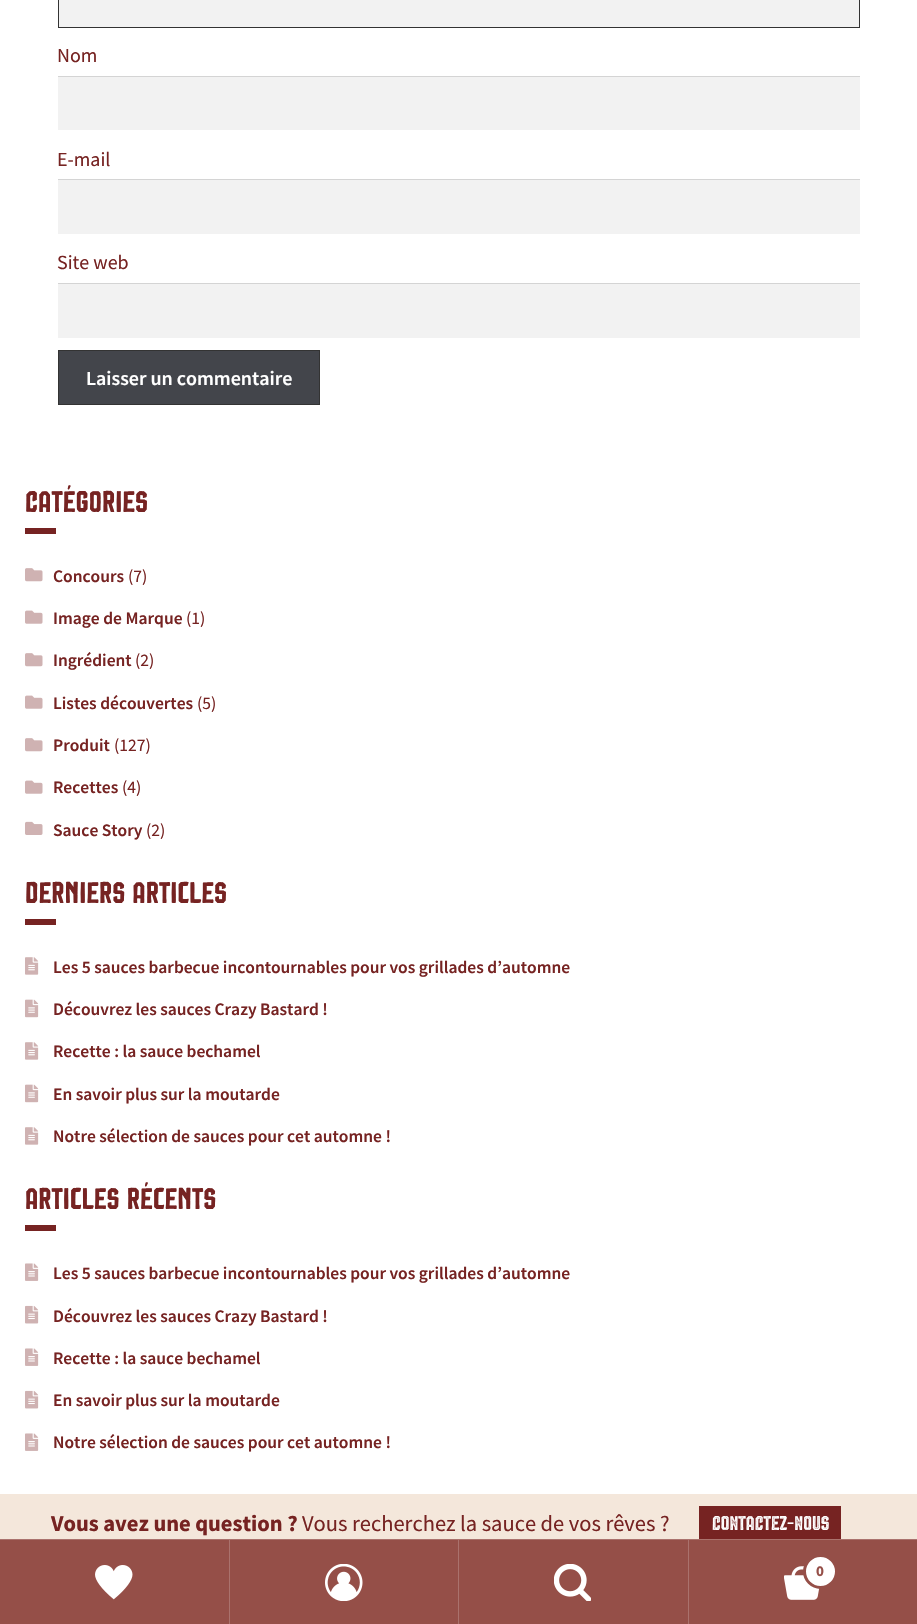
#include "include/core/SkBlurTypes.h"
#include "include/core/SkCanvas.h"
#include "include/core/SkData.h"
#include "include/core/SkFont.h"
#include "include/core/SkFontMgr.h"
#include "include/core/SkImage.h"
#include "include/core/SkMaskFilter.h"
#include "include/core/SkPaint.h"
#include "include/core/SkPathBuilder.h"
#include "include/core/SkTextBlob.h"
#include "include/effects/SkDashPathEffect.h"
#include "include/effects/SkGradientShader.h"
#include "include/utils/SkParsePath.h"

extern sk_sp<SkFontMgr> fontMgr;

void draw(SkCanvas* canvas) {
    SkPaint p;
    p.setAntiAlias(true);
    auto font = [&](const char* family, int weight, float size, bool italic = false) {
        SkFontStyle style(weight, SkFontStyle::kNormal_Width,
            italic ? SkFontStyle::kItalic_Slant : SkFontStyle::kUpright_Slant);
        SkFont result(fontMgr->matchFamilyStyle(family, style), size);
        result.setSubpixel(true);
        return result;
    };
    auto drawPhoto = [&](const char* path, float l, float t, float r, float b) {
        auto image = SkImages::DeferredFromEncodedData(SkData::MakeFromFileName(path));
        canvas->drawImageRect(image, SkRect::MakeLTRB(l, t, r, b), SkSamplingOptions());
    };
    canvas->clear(0xFFFFFFFF);
    p.setColor(0xFFF2F2F2);
    canvas->drawRect(SkRect::MakeLTRB(58.5f, -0.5f, 859.5f, 27.5f), p);
    p.setStyle(SkPaint::kStroke_Style);
    p.setStrokeWidth(1);
    p.setColor(0xFF333333);
    canvas->drawRect(SkRect::MakeLTRB(58.5f, -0.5f, 859.5f, 27.5f), p);
    auto font1 = font("Source Sans Pro", 400, 20);
    p.setStyle(SkPaint::kFill_Style);
    p.setColor(0xFF762322);
    canvas->drawString("Nom", 57, 62, font1, p);
    p.setColor(0xFFF2F2F2);
    canvas->drawRect(SkRect::MakeLTRB(58, 77, 860, 130), p);
    p.setColor(0xFFD4D4D4);
    canvas->drawRect(SkRect::MakeLTRB(58, 76, 860, 77), p);
    p.setColor(0xFF762322);
    canvas->drawString("E-mail", 57, 166, font1, p);
    p.setColor(0xFFF2F2F2);
    canvas->drawRect(SkRect::MakeLTRB(58, 180, 860, 234), p);
    p.setColor(0xFFD4D4D4);
    canvas->drawRect(SkRect::MakeLTRB(58, 179, 860, 180), p);
    p.setColor(0xFF762322);
    canvas->drawString("Site web", 57, 269, font1, p);
    p.setColor(0xFFF2F2F2);
    canvas->drawRect(SkRect::MakeLTRB(58, 284, 860, 338), p);
    p.setColor(0xFFD4D4D4);
    canvas->drawRect(SkRect::MakeLTRB(58, 283, 860, 284), p);
    p.setColor(0xFF43454B);
    canvas->drawRect(SkRect::MakeLTRB(58.5f, 350.5f, 319.5f, 404.5f), p);
    p.setStyle(SkPaint::kStroke_Style);
    p.setColor(0xFF333333);
    canvas->drawRect(SkRect::MakeLTRB(58.5f, 350.5f, 319.5f, 404.5f), p);
    auto font2 = font("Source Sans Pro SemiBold", 600, 20);
    p.setStyle(SkPaint::kFill_Style);
    p.setColor(0xFFFFFFFF);
    canvas->drawString("Laisser un commentaire", 86, 385, font2, p);
    auto font3 = font("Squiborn", 400, 30);
    p.setColor(0xFF762322);
    canvas->drawString("Catégories", 25, 512, font3, p);
    canvas->drawRect(SkRect::MakeLTRB(25, 528, 56, 534), p);
    drawPhoto("media/1.png", 25, 568, 43, 582);
    auto font4 = font("Source Sans Pro SemiBold", 600, 17.5f);
    canvas->drawString("Concours", 53, 582, font4, p);
    auto font5 = font("Source Sans Pro", 400, 17.5f);
    canvas->drawString("(7)", 128, 582, font5, p);
    drawPhoto("media/2.png", 25, 610, 43, 624);
    canvas->drawString("Image de Marque", 53, 624, font4, p);
    canvas->drawString("(1)", 186, 624, font5, p);
    drawPhoto("media/1.png", 25, 653, 43, 667);
    canvas->drawString("Ingrédient", 53, 666, font4, p);
    canvas->drawString("(2)", 135, 666, font5, p);
    drawPhoto("media/2.png", 25, 695, 43, 709);
    canvas->drawString("Listes découvertes", 53, 709, font4, p);
    canvas->drawString("(5)", 197, 709, font5, p);
    drawPhoto("media/1.png", 25, 738, 43, 752);
    canvas->drawString("Produit", 53, 751, font4, p);
    canvas->drawString("(127)", 114, 751, font5, p);
    drawPhoto("media/2.png", 25, 780, 43, 794);
    canvas->drawString("Recettes", 53, 793, font4, p);
    canvas->drawString("(4)", 122, 793, font5, p);
    drawPhoto("media/3.png", 25, 821, 43, 835);
    canvas->drawString("Sauce Story", 53, 836, font4, p);
    canvas->drawString("(2)", 146, 836, font5, p);
    canvas->drawString("Derniers articles", 25, 903, font3, p);
    canvas->drawRect(SkRect::MakeLTRB(25, 919, 56, 925), p);
    drawPhoto("media/4.png", 25, 957, 39, 975);
    canvas->drawString("Les 5 sauces barbecue incontournables pour vos grillades d’automne", 53, 973, font4, p);
    drawPhoto("media/5.png", 25, 999, 39, 1018);
    canvas->drawString("Découvrez les sauces Crazy Bastard !", 53, 1015, font4, p);
    drawPhoto("media/4.png", 25, 1042, 39, 1060);
    canvas->drawString("Recette : la sauce bechamel", 53, 1057, font4, p);
    drawPhoto("media/5.png", 25, 1084, 39, 1103);
    canvas->drawString("En savoir plus sur la moutarde", 53, 1100, font4, p);
    drawPhoto("media/4.png", 25, 1127, 39, 1145);
    canvas->drawString("Notre sélection de sauces pour cet automne !", 53, 1142, font4, p);
    canvas->drawString("Articles récents", 25, 1209, font3, p);
    canvas->drawRect(SkRect::MakeLTRB(25, 1225, 56, 1231), p);
    drawPhoto("media/6.png", 25, 1263, 39, 1281);
    canvas->drawString("Les 5 sauces barbecue incontournables pour vos grillades d’automne", 53, 1279, font4, p);
    drawPhoto("media/7.png", 25, 1305, 39, 1324);
    canvas->drawString("Découvrez les sauces Crazy Bastard !", 53, 1322, font4, p);
    drawPhoto("media/6.png", 25, 1348, 39, 1366);
    canvas->drawString("Recette : la sauce bechamel", 53, 1364, font4, p);
    drawPhoto("media/7.png", 25, 1390, 39, 1409);
    canvas->drawString("En savoir plus sur la moutarde", 53, 1406, font4, p);
    drawPhoto("media/6.png", 25, 1433, 39, 1451);
    canvas->drawString("Notre sélection de sauces pour cet automne !", 53, 1448, font4, p);
    p.setColor(0xFFF4E7DB);
    canvas->drawRect(SkRect::MakeLTRB(0, 1494, 917, 1539), p);
    auto font6 = font("Source Sans Pro", 700, 22.5f);
    p.setColor(0xFF762322);
    canvas->drawString("Vous avez une question ?", 51, 1531, font6, p);
    auto font7 = font("Source Sans Pro", 400, 22.5f);
    canvas->drawString("Vous recherchez la sauce de vos rêves ?", 302, 1531, font7, p);
    canvas->drawRect(SkRect::MakeLTRB(699, 1506, 841, 1539), p);
    auto font8 = font("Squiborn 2", 400, 20);
    p.setColor(0xFFFFFFFF);
    canvas->drawString("CONTACTEZ-NOUS", 712, 1530, font8, p);
    {
        const struct { float l, t, r, b; SkColor color; } items[] = {
            {0, 1539, 917, 1540, 0xFFAA726D},
            {0, 1540, 229, 1624, 0xFF954F48},
            {229, 1540, 230, 1624, 0xFFAA726D},
        };
        for (auto [l, t, r, b, color] : items) {
            p.setColor(color);
            canvas->drawRect(SkRect::MakeLTRB(l, t, r, b), p);
        }
    }
    drawPhoto("media/8.png", 95, 1565, 133, 1600);
    p.setColor(0xFF954F48);
    canvas->drawRect(SkRect::MakeLTRB(230, 1540, 458, 1624), p);
    p.setColor(0xFFAA726D);
    canvas->drawRect(SkRect::MakeLTRB(458, 1540, 459, 1624), p);
    drawPhoto("media/9.png", 325, 1564, 363, 1601);
    p.setColor(0xFF954F48);
    canvas->drawRect(SkRect::MakeLTRB(459, 1540, 688, 1624), p);
    p.setColor(0xFFAA726D);
    canvas->drawRect(SkRect::MakeLTRB(688, 1540, 689, 1624), p);
    drawPhoto("media/10.png", 554, 1564, 591, 1601);
    p.setColor(0xFF954F48);
    canvas->drawRect(SkRect::MakeLTRB(689, 1540, 917, 1624), p);
    drawPhoto("media/11.png", 784, 1566, 820, 1600);
    p.setColor(0xFFFFFFFF);
    canvas->drawCircle(820.5f, 1571.5f, 16, p);
    p.setStyle(SkPaint::kStroke_Style);
    p.setStrokeWidth(3);
    p.setColor(0xFF954F48);
    canvas->drawCircle(820.5f, 1571.5f, 16, p);
    auto font9 = font("Source Sans Pro", 700, 15);
    p.setStyle(SkPaint::kFill_Style);
    canvas->drawString("0", 816, 1576, font9, p);
}
